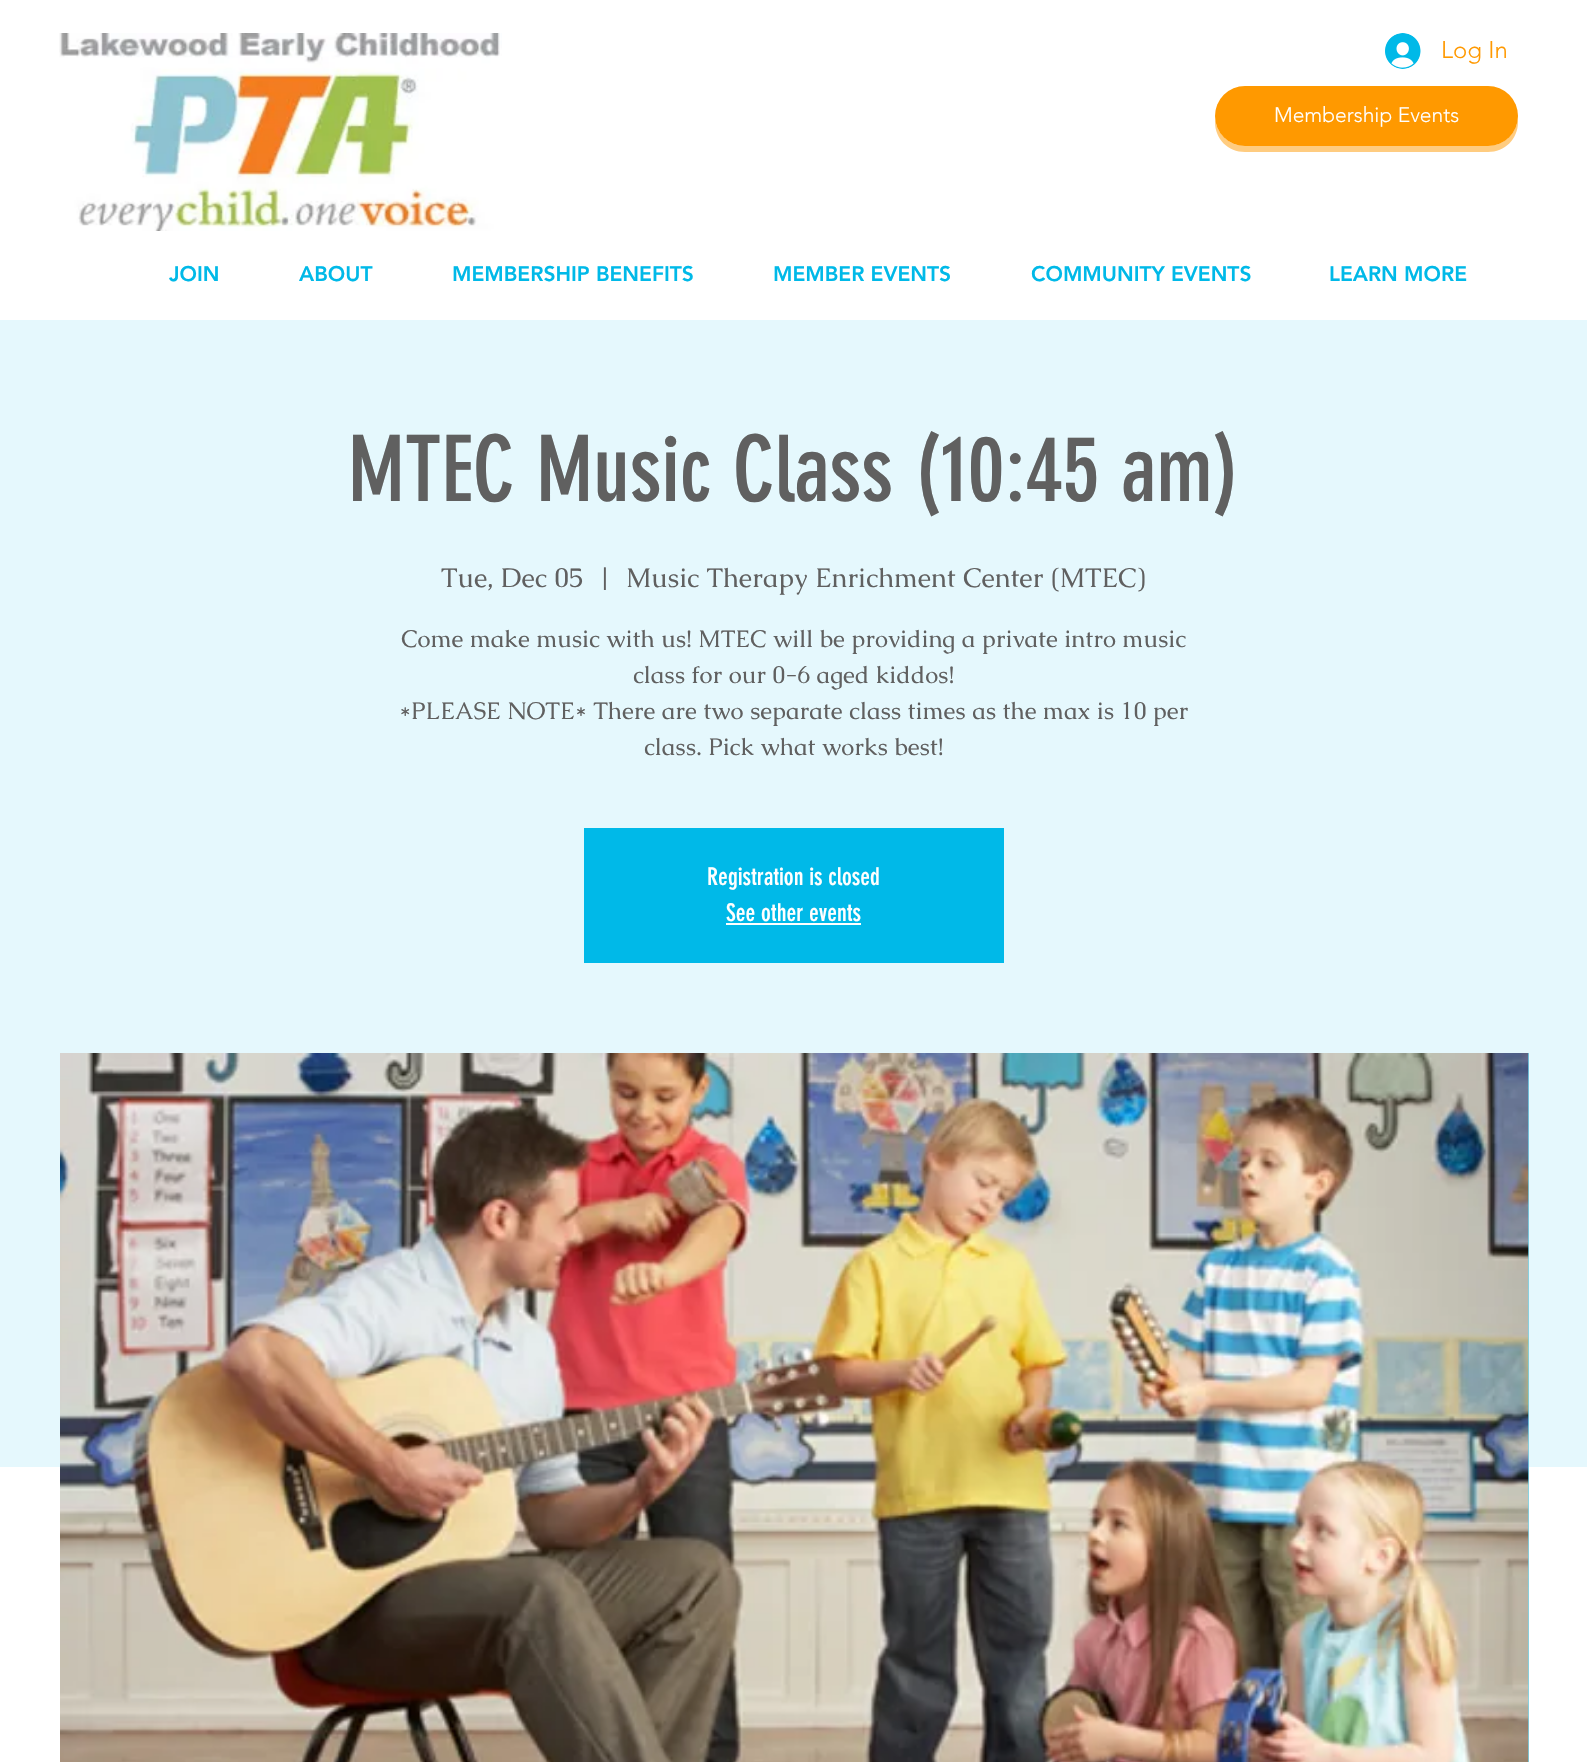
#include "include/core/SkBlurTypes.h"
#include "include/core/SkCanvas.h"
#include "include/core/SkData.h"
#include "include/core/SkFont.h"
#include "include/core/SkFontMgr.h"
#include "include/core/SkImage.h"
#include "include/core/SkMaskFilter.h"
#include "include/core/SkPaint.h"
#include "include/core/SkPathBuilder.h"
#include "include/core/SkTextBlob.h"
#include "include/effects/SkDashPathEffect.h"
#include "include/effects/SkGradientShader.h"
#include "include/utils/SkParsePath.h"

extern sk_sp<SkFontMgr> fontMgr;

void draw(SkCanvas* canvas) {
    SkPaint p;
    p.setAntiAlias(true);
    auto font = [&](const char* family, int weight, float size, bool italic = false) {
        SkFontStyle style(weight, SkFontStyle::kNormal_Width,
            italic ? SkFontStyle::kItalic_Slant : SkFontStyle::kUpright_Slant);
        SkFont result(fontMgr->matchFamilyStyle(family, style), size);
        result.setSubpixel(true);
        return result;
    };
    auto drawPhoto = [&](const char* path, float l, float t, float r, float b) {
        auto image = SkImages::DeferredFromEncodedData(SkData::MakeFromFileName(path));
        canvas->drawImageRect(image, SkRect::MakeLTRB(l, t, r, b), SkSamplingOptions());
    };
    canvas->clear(0xFFFFFFFF);
    drawPhoto("media/1.png", 59, 33, 502, 231);
    drawPhoto("media/2.png", 1385, 33, 1421, 69);
    auto font1 = font("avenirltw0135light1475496", 300, 24);
    p.setColor(0xFFFF9900);
    canvas->drawString("Log In", 1441, 58, font1, p);
    p.setColor(0xFFFFCC80);
    canvas->drawPath(SkPathBuilder().moveTo(1215, 119).lineTo(1215, 122).cubicTo(1215, 139, 1228, 152, 1245, 152).lineTo(1488, 152).cubicTo(1505, 152, 1518, 139, 1518, 122).lineTo(1518, 119).cubicTo(1516, 134, 1503, 146, 1488, 146).lineTo(1245, 146).cubicTo(1230, 146, 1217, 134, 1215, 119).close().detach(), p);
    p.setColor(0xFFFF9900);
    canvas->drawRoundRect(SkRect::MakeLTRB(1215, 86, 1518, 146), 30, 30, p);
    auto font2 = font("avenirltw0135light1475496", 300, 21);
    p.setColor(0xFFFFFFFF);
    canvas->drawString("Membership Events", 1274, 122, font2, p);
    auto font3 = font("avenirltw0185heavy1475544", 900, 21);
    p.setColor(0xFF00B9E8);
    {
        const struct { const char* s; float x, y; } items[] = {
            {"JOIN", 169, 281},
            {"ABOUT", 299, 281},
            {"MEMBERSHIP BENEFITS", 452, 281},
            {"MEMBER EVENTS", 773, 281},
            {"COMMUNITY EVENTS", 1031, 281},
            {"LEARN MORE", 1329, 281},
        };
        for (auto [s, x, y] : items) {
            canvas->drawString(s, x, y, font3, p);
        }
    }
    p.setColor(0xFFE5F8FD);
    canvas->drawRect(SkRect::MakeLTRB(0, 320, 1587, 1467), p);
    auto font4 = font("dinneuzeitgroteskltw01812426", 400, 90);
    p.setColor(0xFF606060);
    canvas->drawString("MTEC Music Class (10:45 am)", 348, 501, font4, p);
    auto font5 = font("Caudex", 400, 27);
    {
        const struct { const char* s; float x, y; } items[] = {
            {"Tue, Dec 05", 441, 587},
            {"|", 598, 587},
            {"Music Therapy Enrichment Center (MTEC)", 626, 587},
        };
        for (auto [s, x, y] : items) {
            canvas->drawString(s, x, y, font5, p);
        }
    }
    auto font6 = font("Caudex", 400, 24);
    {
        const struct { const char* s; float x, y; } items[] = {
            {"Come make music with us! MTEC will be providing a private intro music", 401, 647},
            {"class for our 0-6 aged kiddos!", 633, 683},
            {"*PLEASE NOTE* There are two separate class times as the max is 10 per", 399, 719},
            {"class. Pick what works best!", 644, 755},
        };
        for (auto [s, x, y] : items) {
            canvas->drawString(s, x, y, font6, p);
        }
    }
    p.setColor(0xFF00B9E8);
    canvas->drawRect(SkRect::MakeLTRB(584, 828, 1004, 963), p);
    auto font7 = font("dinneuzeitgroteskltw01812426", 400, 24);
    p.setColor(0xFFFFFFFF);
    canvas->drawString("Registration is closed", 707, 885, font7, p);
    canvas->drawString("See other events", 726, 921, font7, p);
    canvas->drawRect(SkRect::MakeLTRB(726, 923, 861, 925), p);
    p.setColor(0xFF77D7EF);
    canvas->drawRect(SkRect::MakeLTRB(1528, 1053, 1529, 1762), p);
    drawPhoto("media/3.png", 60, 1053, 1529, 1762);
}
